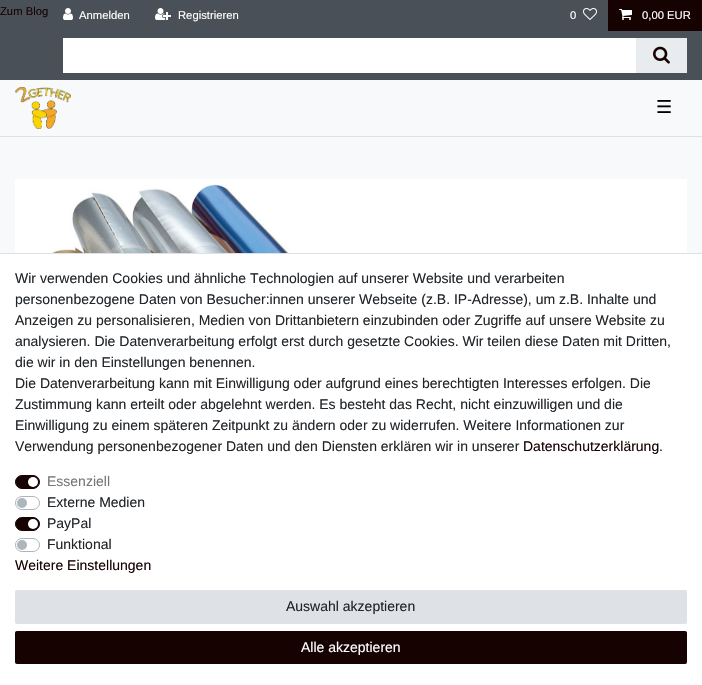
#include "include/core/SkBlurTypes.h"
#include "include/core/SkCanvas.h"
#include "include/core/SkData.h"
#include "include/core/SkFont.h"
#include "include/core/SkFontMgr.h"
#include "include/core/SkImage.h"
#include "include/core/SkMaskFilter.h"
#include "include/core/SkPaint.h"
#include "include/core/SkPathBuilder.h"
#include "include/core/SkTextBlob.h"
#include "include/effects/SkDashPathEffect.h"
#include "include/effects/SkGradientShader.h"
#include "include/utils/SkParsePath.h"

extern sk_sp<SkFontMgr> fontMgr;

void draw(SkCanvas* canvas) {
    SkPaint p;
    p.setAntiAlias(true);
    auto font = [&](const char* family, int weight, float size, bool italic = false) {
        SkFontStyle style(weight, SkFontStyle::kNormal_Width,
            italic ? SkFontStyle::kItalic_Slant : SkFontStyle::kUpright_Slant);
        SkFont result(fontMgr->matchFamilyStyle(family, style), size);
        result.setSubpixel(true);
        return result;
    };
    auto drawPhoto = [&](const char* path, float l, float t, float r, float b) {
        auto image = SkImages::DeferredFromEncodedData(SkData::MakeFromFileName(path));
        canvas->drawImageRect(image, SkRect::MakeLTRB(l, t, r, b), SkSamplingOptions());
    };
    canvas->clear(0xFFF8F9FA);
    p.setColor(0xFF495057);
    canvas->drawRect(SkRect::MakeLTRB(0, 0, 702, 80), p);
    auto font1 = font("Liberation Sans", 400, 11.25f);
    p.setColor(0xFF170202);
    canvas->drawString("Zum Blog", 0, 15, font1, p);
    drawPhoto("media/1.png", 63, 8, 73, 20);
    p.setColor(0xFFFFFFFF);
    canvas->drawString("Anmelden", 79, 19, font1, p);
    drawPhoto("media/2.png", 155, 8, 171, 20);
    canvas->drawString("Registrieren", 178, 19, font1, p);
    canvas->drawString("0", 570, 19, font1, p);
    drawPhoto("media/3.png", 583, 8, 597, 20);
    p.setColor(0xFF170202);
    canvas->drawRect(SkRect::MakeLTRB(608, 0, 702, 31), p);
    drawPhoto("media/4.png", 619, 9, 632, 20);
    p.setColor(0xFFFFFFFF);
    canvas->drawString("0,00 EUR", 642, 19, font1, p);
    canvas->drawRect(SkRect::MakeLTRB(63, 38, 636, 73), p);
    p.setColor(0xFFE9ECEF);
    canvas->drawRect(SkRect::MakeLTRB(636, 38, 687, 73), p);
    drawPhoto("media/5.png", 653, 46, 670, 64);
    p.setColor(0xFFDEE2E6);
    canvas->drawRect(SkRect::MakeLTRB(0, 136, 702, 137), p);
    drawPhoto("media/6.png", 15, 87, 71, 129);
    auto font2 = font("DejaVu Sans", 400, 18);
    p.setColor(0xFF000000);
    canvas->drawString("☰", 656, 113, font2, p);
    p.setColor(0xFFFFFFFF);
    canvas->drawRect(SkRect::MakeLTRB(15, 179, 687, 253), p);
    drawPhoto("media/7.png", 19, 184, 681, 253);
    canvas->drawRect(SkRect::MakeLTRB(0, 254, 702, 685), p);
    p.setColor(0xFFDEE2E6);
    canvas->drawRect(SkRect::MakeLTRB(0, 253, 702, 254), p);
    auto font3 = font("Liberation Sans", 400, 14);
    p.setColor(0xFF212529);
    {
        const struct { const char* s; float x, y; } items[] = {
            {"Wir verwenden Cookies und ähnliche Technologien auf unserer Website und verarbeiten", 15, 283},
            {"personenbezogene Daten von Besucher:innen unserer Webseite (z.B. IP-Adresse), um z.B. Inhalte und", 15, 304},
            {"Anzeigen zu personalisieren, Medien von Drittanbietern einzubinden oder Zugriffe auf unsere Website zu", 15, 325},
            {"analysieren. Die Datenverarbeitung erfolgt erst durch gesetzte Cookies. Wir teilen diese Daten mit Dritten,", 15, 346},
            {"die wir in den Einstellungen benennen.", 15, 367},
            {"Die Datenverarbeitung kann mit Einwilligung oder aufgrund eines berechtigten Interesses erfolgen. Die", 15, 388},
            {"Zustimmung kann erteilt oder abgelehnt werden. Es besteht das Recht, nicht einzuwilligen und die", 15, 409},
            {"Einwilligung zu einem späteren Zeitpunkt zu ändern oder zu widerrufen. Weitere Informationen zur", 15, 430},
            {"Verwendung personenbezogener Daten und den Diensten erklären wir in unserer", 15, 451},
        };
        for (auto [s, x, y] : items) {
            canvas->drawString(s, x, y, font3, p);
        }
    }
    p.setColor(0xFF170202);
    canvas->drawString("Datenschutzerklärung", 523, 451, font3, p);
    p.setColor(0xFF212529);
    canvas->drawString(".", 659, 451, font3, p);
    p.setColor(0xFF170202);
    canvas->drawRoundRect(SkRect::MakeLTRB(15.5f, 475.5f, 39.5f, 488.5f), 6.5f, 6.5f, p);
    p.setStyle(SkPaint::kStroke_Style);
    p.setStrokeWidth(1);
    canvas->drawRoundRect(SkRect::MakeLTRB(15.5f, 475.5f, 39.5f, 488.5f), 6.5f, 6.5f, p);
    p.setStyle(SkPaint::kFill_Style);
    p.setColor(0xFF767676);
    canvas->drawString("Essenziell", 47, 486, font3, p);
    p.setColor(0xFFFFFFFF);
    canvas->drawCircle(33, 482, 5, p);
    p.setStyle(SkPaint::kStroke_Style);
    p.setColor(0xFFADB5BD);
    canvas->drawRoundRect(SkRect::MakeLTRB(15.5f, 496.5f, 39.5f, 509.5f), 6.5f, 6.5f, p);
    p.setStyle(SkPaint::kFill_Style);
    p.setColor(0xFF212529);
    canvas->drawString("Externe Medien", 47, 507, font3, p);
    p.setColor(0xFFADB5BD);
    canvas->drawCircle(22, 503, 5, p);
    p.setColor(0xFF170202);
    canvas->drawRoundRect(SkRect::MakeLTRB(15.5f, 517.5f, 39.5f, 530.5f), 6.5f, 6.5f, p);
    p.setStyle(SkPaint::kStroke_Style);
    canvas->drawRoundRect(SkRect::MakeLTRB(15.5f, 517.5f, 39.5f, 530.5f), 6.5f, 6.5f, p);
    p.setStyle(SkPaint::kFill_Style);
    p.setColor(0xFF212529);
    canvas->drawString("PayPal", 47, 528, font3, p);
    p.setColor(0xFFFFFFFF);
    canvas->drawCircle(33, 524, 5, p);
    p.setStyle(SkPaint::kStroke_Style);
    p.setColor(0xFFADB5BD);
    canvas->drawRoundRect(SkRect::MakeLTRB(15.5f, 538.5f, 39.5f, 551.5f), 6.5f, 6.5f, p);
    p.setStyle(SkPaint::kFill_Style);
    p.setColor(0xFF212529);
    canvas->drawString("Funktional", 47, 549, font3, p);
    p.setColor(0xFFADB5BD);
    canvas->drawCircle(22, 545, 5, p);
    p.setColor(0xFF170202);
    canvas->drawString("Weitere Einstellungen", 15, 570, font3, p);
    p.setColor(0xFFDEE2E6);
    canvas->drawRoundRect(SkRect::MakeLTRB(15.5f, 590.5f, 686.5f, 623.5f), 1, 1, p);
    p.setStyle(SkPaint::kStroke_Style);
    canvas->drawRoundRect(SkRect::MakeLTRB(15.5f, 590.5f, 686.5f, 623.5f), 1, 1, p);
    p.setStyle(SkPaint::kFill_Style);
    p.setColor(0xFF212529);
    canvas->drawString("Auswahl akzeptieren", 286, 611, font3, p);
    p.setColor(0xFF170202);
    canvas->drawRoundRect(SkRect::MakeLTRB(15.5f, 631.5f, 686.5f, 663.5f), 1, 1, p);
    p.setStyle(SkPaint::kStroke_Style);
    canvas->drawRoundRect(SkRect::MakeLTRB(15.5f, 631.5f, 686.5f, 663.5f), 1, 1, p);
    p.setStyle(SkPaint::kFill_Style);
    p.setColor(0xFFFFFFFF);
    canvas->drawString("Alle akzeptieren", 301, 652, font3, p);
}
